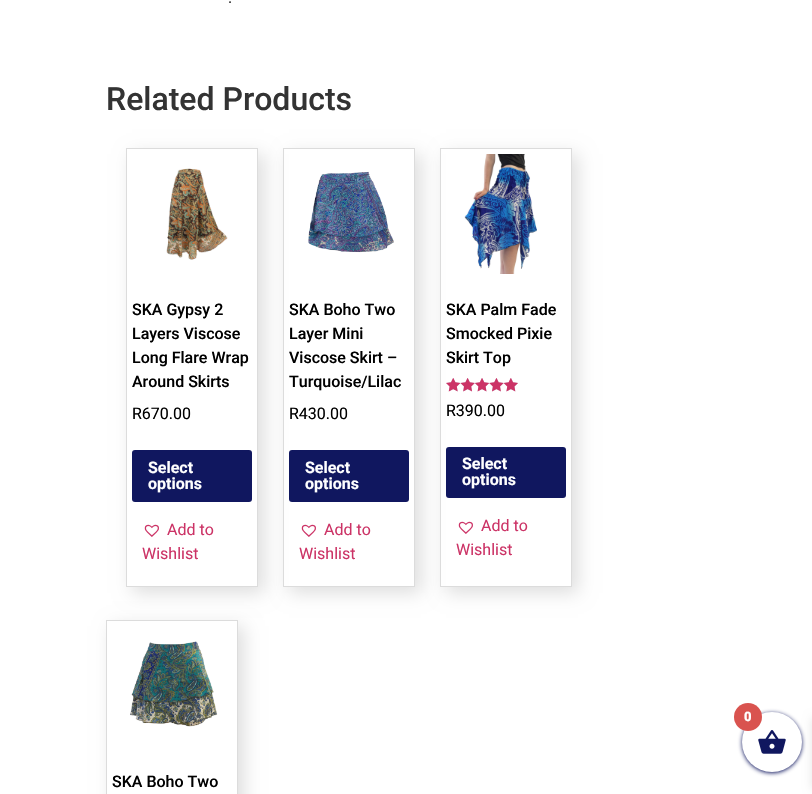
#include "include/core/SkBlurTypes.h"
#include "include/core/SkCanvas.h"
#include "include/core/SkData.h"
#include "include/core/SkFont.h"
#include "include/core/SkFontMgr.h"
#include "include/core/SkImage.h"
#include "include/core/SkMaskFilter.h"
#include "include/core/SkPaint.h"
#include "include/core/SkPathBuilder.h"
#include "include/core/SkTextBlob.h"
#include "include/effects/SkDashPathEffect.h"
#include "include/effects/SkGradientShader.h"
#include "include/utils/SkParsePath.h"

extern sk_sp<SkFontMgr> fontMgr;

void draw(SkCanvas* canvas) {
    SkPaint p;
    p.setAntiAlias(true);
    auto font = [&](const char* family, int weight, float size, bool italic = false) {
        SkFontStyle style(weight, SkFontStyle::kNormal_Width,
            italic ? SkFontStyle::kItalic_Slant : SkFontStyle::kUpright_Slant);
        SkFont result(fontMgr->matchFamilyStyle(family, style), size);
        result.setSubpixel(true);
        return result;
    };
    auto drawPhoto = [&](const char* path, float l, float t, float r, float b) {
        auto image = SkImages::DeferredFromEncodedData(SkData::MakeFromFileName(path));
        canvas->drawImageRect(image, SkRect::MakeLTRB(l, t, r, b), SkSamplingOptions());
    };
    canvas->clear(0xFFFFFFFF);
    auto font1 = font("Roboto", 400, 16);
    p.setColor(0xFF333333);
    canvas->drawString(".", 228, 3, font1, p);
    auto font2 = font("Roboto", 500, 32);
    canvas->drawString("Related Products", 106, 110, font2, p);
    canvas->save();
    canvas->clipPath(SkPathBuilder(SkPathFillType::kEvenOdd).moveTo(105, 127).lineTo(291, 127).lineTo(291, 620).lineTo(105, 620).close().moveTo(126, 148).lineTo(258, 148).lineTo(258, 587).lineTo(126, 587).close().detach(), true);
    p.setColor(0x21000000);
    p.setMaskFilter(SkMaskFilter::MakeBlur(kNormal_SkBlurStyle, 8.5f));
    canvas->drawRect(SkRect::MakeLTRB(132, 154, 264, 593), p);
    p.setMaskFilter(nullptr);
    canvas->restore();
    p.setStyle(SkPaint::kStroke_Style);
    p.setStrokeWidth(1);
    p.setColor(0xFFDCDCDC);
    canvas->drawRect(SkRect::MakeLTRB(126.5f, 148.5f, 257.5f, 586.5f), p);
    drawPhoto("media/1.png", 166, 168, 228, 260);
    auto font3 = font("Roboto", 500, 16);
    p.setStyle(SkPaint::kFill_Style);
    p.setColor(0xFF000000);
    {
        const struct { const char* s; float x, y; } items[] = {
            {"SKA Gypsy 2", 132, 315},
            {"Layers Viscose", 132, 339},
            {"Long Flare Wrap", 132, 363},
            {"Around Skirts", 132, 387},
        };
        for (auto [s, x, y] : items) {
            canvas->drawString(s, x, y, font3, p);
        }
    }
    canvas->drawString("R670.00", 132, 419, font1, p);
    p.setColor(0xFF10175F);
    canvas->drawRoundRect(SkRect::MakeLTRB(132, 450, 252, 502), 3, 3, p);
    auto font4 = font("Roboto", 700, 16);
    p.setColor(0xFFFFFFFF);
    canvas->drawString("Select", 148, 473, font4, p);
    canvas->drawString("options", 148, 489, font4, p);
    drawPhoto("media/2.png", 144, 524, 159, 537);
    p.setColor(0xFFCC3366);
    canvas->drawString("Add to", 167, 535, font1, p);
    canvas->drawString("Wishlist", 142, 559, font1, p);
    canvas->save();
    canvas->clipPath(SkPathBuilder(SkPathFillType::kEvenOdd).moveTo(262, 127).lineTo(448, 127).lineTo(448, 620).lineTo(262, 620).close().moveTo(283, 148).lineTo(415, 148).lineTo(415, 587).lineTo(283, 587).close().detach(), true);
    p.setColor(0x21000000);
    p.setMaskFilter(SkMaskFilter::MakeBlur(kNormal_SkBlurStyle, 8.5f));
    canvas->drawRect(SkRect::MakeLTRB(289, 154, 421, 593), p);
    p.setMaskFilter(nullptr);
    canvas->restore();
    p.setStyle(SkPaint::kStroke_Style);
    p.setColor(0xFFDCDCDC);
    canvas->drawRect(SkRect::MakeLTRB(283.5f, 148.5f, 414.5f, 586.5f), p);
    drawPhoto("media/3.png", 308, 171, 394, 253);
    p.setStyle(SkPaint::kFill_Style);
    p.setColor(0xFF000000);
    {
        const struct { const char* s; float x, y; } items[] = {
            {"SKA Boho Two", 289, 315},
            {"Layer Mini", 289, 339},
            {"Viscose Skirt –", 289, 363},
            {"Turquoise/Lilac", 289, 387},
        };
        for (auto [s, x, y] : items) {
            canvas->drawString(s, x, y, font3, p);
        }
    }
    canvas->drawString("R430.00", 289, 419, font1, p);
    p.setColor(0xFF10175F);
    canvas->drawRoundRect(SkRect::MakeLTRB(289, 450, 409, 502), 3, 3, p);
    p.setColor(0xFFFFFFFF);
    canvas->drawString("Select", 305, 473, font4, p);
    canvas->drawString("options", 305, 489, font4, p);
    drawPhoto("media/2.png", 301, 524, 316, 537);
    p.setColor(0xFFCC3366);
    canvas->drawString("Add to", 324, 535, font1, p);
    canvas->drawString("Wishlist", 299, 559, font1, p);
    canvas->save();
    canvas->clipPath(SkPathBuilder(SkPathFillType::kEvenOdd).moveTo(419, 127).lineTo(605, 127).lineTo(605, 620).lineTo(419, 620).close().moveTo(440, 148).lineTo(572, 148).lineTo(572, 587).lineTo(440, 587).close().detach(), true);
    p.setColor(0x21000000);
    p.setMaskFilter(SkMaskFilter::MakeBlur(kNormal_SkBlurStyle, 8.5f));
    canvas->drawRect(SkRect::MakeLTRB(446, 154, 578, 593), p);
    p.setMaskFilter(nullptr);
    canvas->restore();
    p.setStyle(SkPaint::kStroke_Style);
    p.setColor(0xFFDCDCDC);
    canvas->drawRect(SkRect::MakeLTRB(440.5f, 148.5f, 571.5f, 586.5f), p);
    drawPhoto("media/4.png", 464, 154, 537, 274);
    p.setStyle(SkPaint::kFill_Style);
    p.setColor(0xFF000000);
    {
        const struct { const char* s; float x, y; } items[] = {
            {"SKA Palm Fade", 446, 315},
            {"Smocked Pixie", 446, 339},
            {"Skirt Top", 446, 363},
        };
        for (auto [s, x, y] : items) {
            canvas->drawString(s, x, y, font3, p);
        }
    }
    drawPhoto("media/5.png", 446, 378, 518, 392);
    drawPhoto("media/6.png", 446, 378, 518, 392);
    canvas->drawString("R390.00", 446, 416, font1, p);
    p.setColor(0xFF10175F);
    canvas->drawRoundRect(SkRect::MakeLTRB(446, 447, 566, 498), 3, 3, p);
    p.setColor(0xFFFFFFFF);
    canvas->drawString("Select", 462, 469, font4, p);
    canvas->drawString("options", 462, 485, font4, p);
    drawPhoto("media/2.png", 458, 521, 473, 534);
    p.setColor(0xFFCC3366);
    canvas->drawString("Add to", 481, 531, font1, p);
    canvas->drawString("Wishlist", 456, 555, font1, p);
    canvas->save();
    canvas->clipPath(SkPathBuilder(SkPathFillType::kEvenOdd).moveTo(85, 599).lineTo(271, 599).lineTo(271, 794).lineTo(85, 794).close().moveTo(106, 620).lineTo(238, 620).lineTo(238, 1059).lineTo(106, 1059).close().detach(), true);
    p.setColor(0x21000000);
    p.setMaskFilter(SkMaskFilter::MakeBlur(kNormal_SkBlurStyle, 8.5f));
    canvas->drawRect(SkRect::MakeLTRB(112, 626, 244, 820), p);
    p.setMaskFilter(nullptr);
    canvas->restore();
    p.setStyle(SkPaint::kStroke_Style);
    p.setColor(0xFFDCDCDC);
    canvas->drawRect(SkRect::MakeLTRB(106.5f, 620.5f, 237.5f, 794.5f), p);
    drawPhoto("media/7.png", 130, 641, 218, 727);
    p.setStyle(SkPaint::kFill_Style);
    p.setColor(0xFF000000);
    canvas->drawString("SKA Boho Two", 112, 787, font3, p);
    p.setColor(0xFF10175F);
    p.setMaskFilter(SkMaskFilter::MakeBlur(kNormal_SkBlurStyle, 2));
    canvas->drawRoundRect(SkRect::MakeLTRB(742, 713, 802, 773), 30, 30, p);
    p.setMaskFilter(nullptr);
    p.setColor(0x1A000000);
    p.setMaskFilter(SkMaskFilter::MakeBlur(kNormal_SkBlurStyle, 5));
    canvas->drawRect(SkRect::MakeLTRB(812, 718, 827, 789), p);
    p.setMaskFilter(nullptr);
    p.setColor(0xFFFFFFFF);
    canvas->drawCircle(772, 742, 30, p);
    drawPhoto("media/8.png", 758, 730, 786, 754);
    p.setColor(0xFFD9534F);
    canvas->drawCircle(748, 717, 14, p);
    auto font5 = font("Roboto", 900, 13);
    p.setColor(0xFFFFFFFF);
    canvas->drawString("0", 744, 721, font5, p);
}
